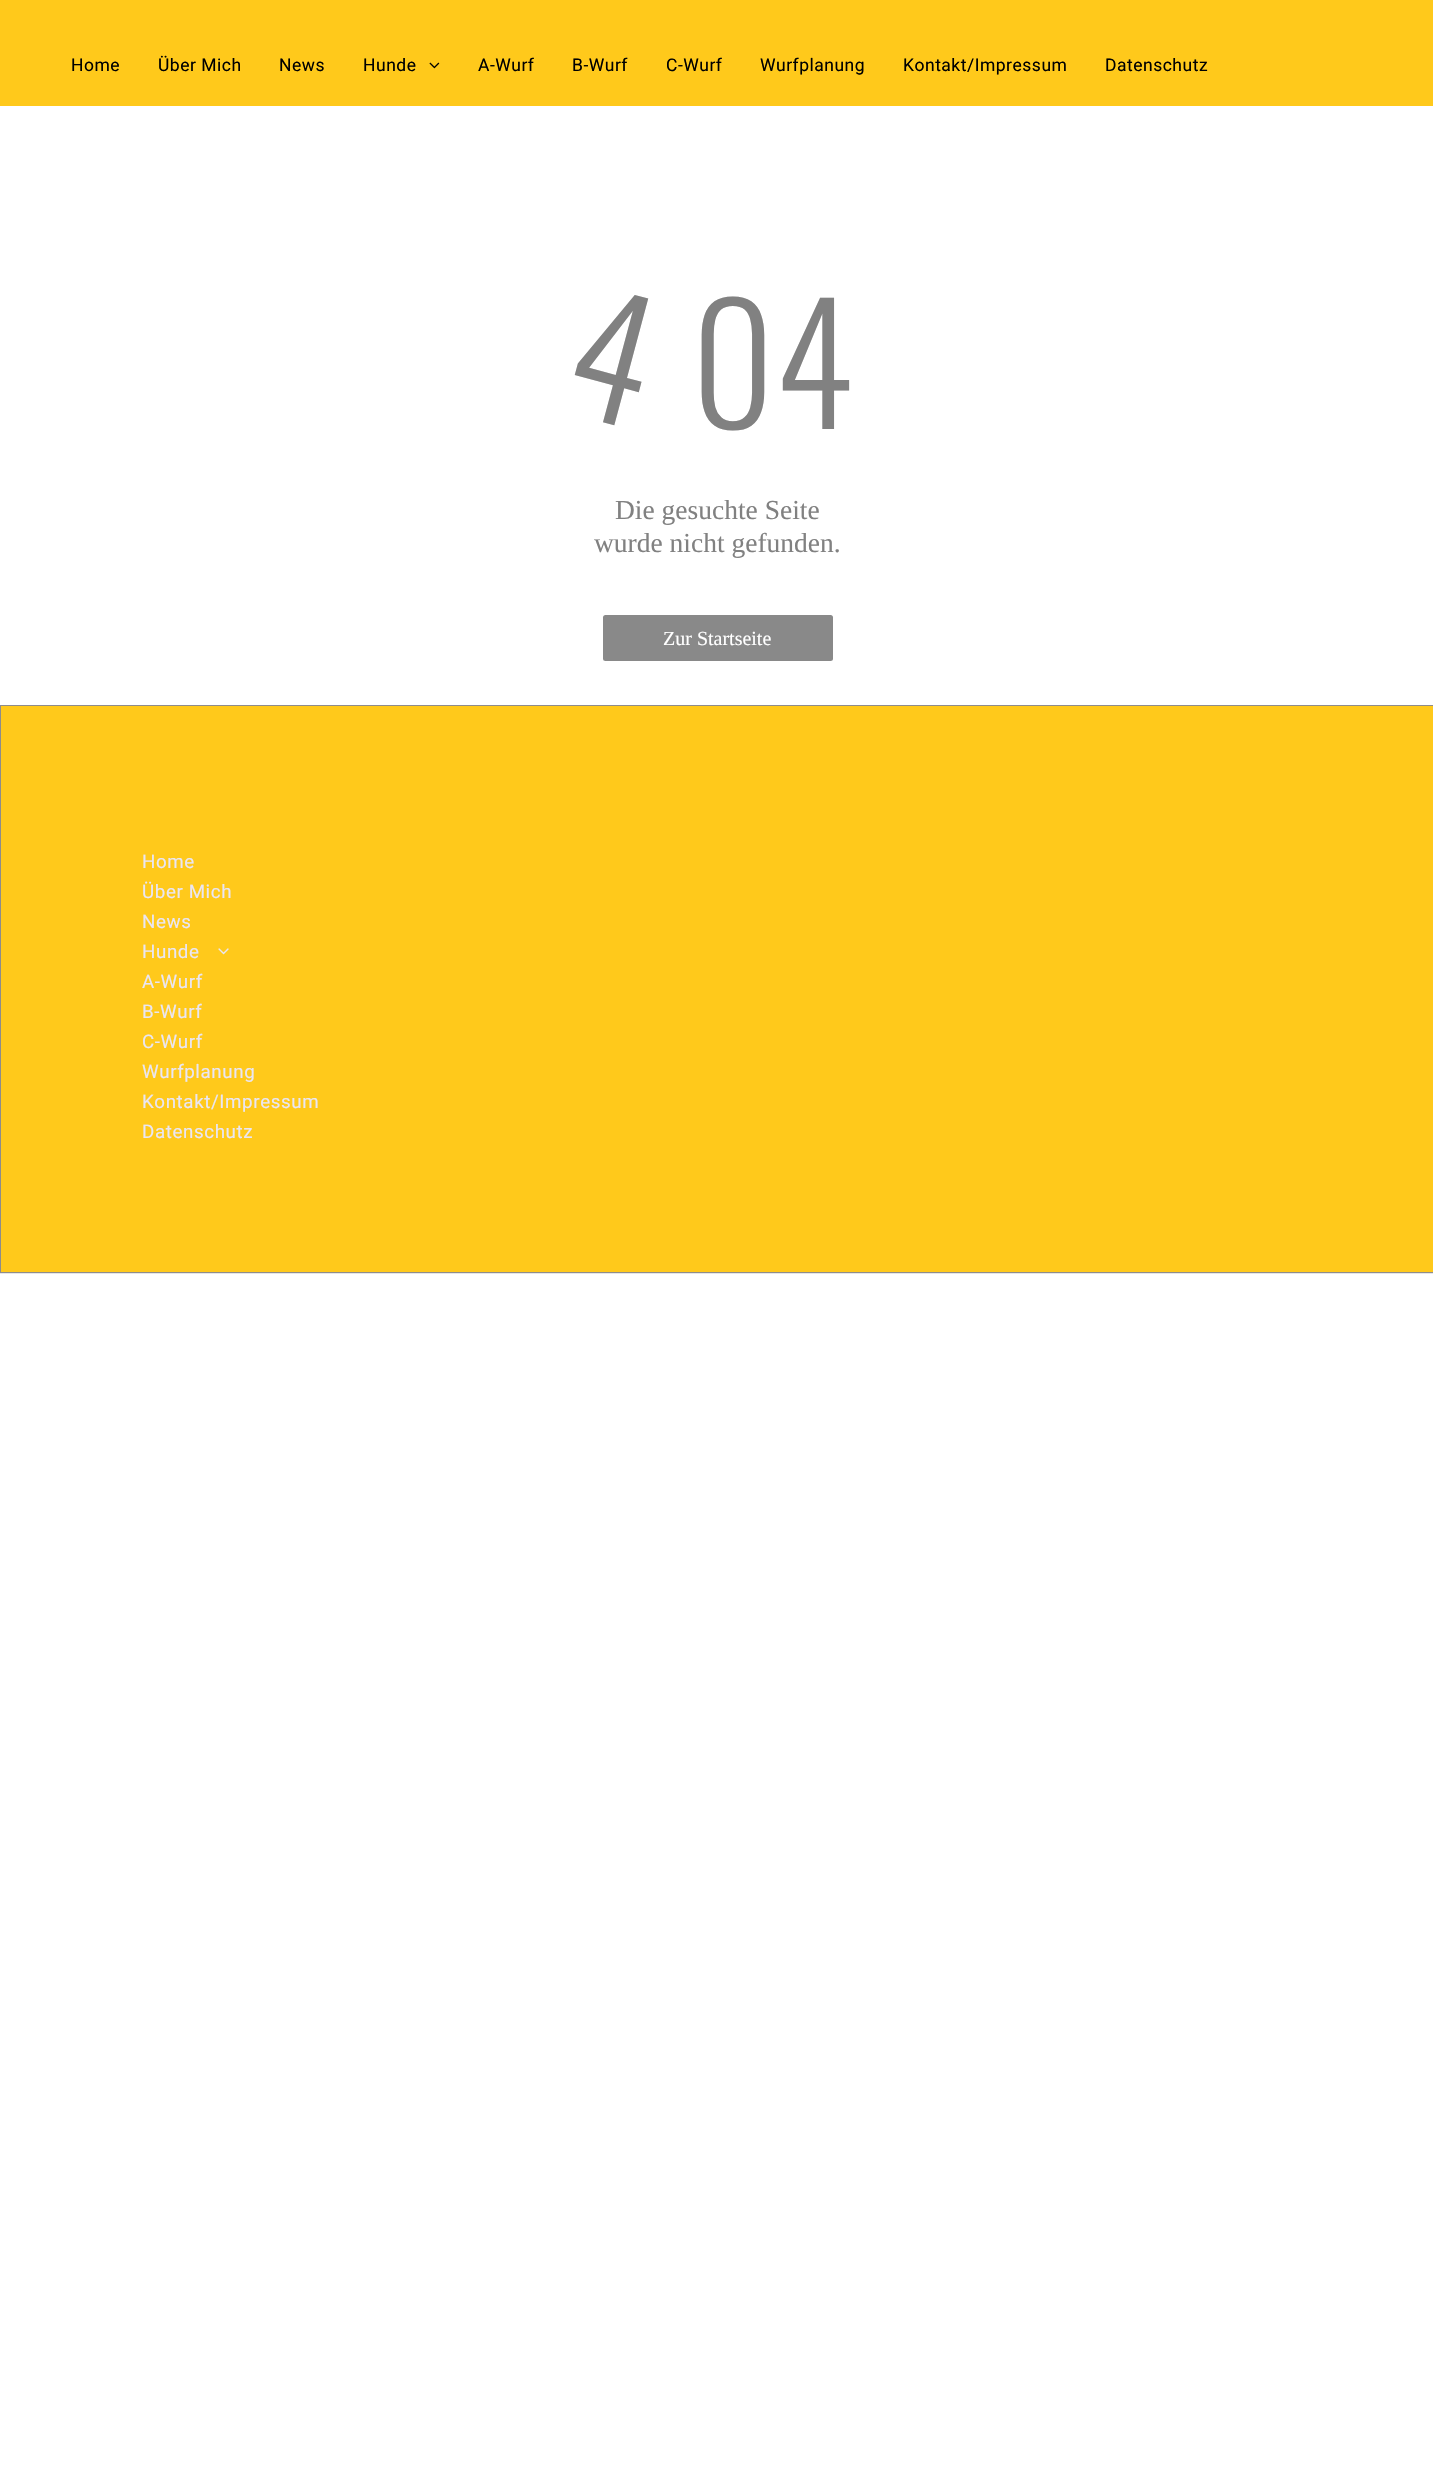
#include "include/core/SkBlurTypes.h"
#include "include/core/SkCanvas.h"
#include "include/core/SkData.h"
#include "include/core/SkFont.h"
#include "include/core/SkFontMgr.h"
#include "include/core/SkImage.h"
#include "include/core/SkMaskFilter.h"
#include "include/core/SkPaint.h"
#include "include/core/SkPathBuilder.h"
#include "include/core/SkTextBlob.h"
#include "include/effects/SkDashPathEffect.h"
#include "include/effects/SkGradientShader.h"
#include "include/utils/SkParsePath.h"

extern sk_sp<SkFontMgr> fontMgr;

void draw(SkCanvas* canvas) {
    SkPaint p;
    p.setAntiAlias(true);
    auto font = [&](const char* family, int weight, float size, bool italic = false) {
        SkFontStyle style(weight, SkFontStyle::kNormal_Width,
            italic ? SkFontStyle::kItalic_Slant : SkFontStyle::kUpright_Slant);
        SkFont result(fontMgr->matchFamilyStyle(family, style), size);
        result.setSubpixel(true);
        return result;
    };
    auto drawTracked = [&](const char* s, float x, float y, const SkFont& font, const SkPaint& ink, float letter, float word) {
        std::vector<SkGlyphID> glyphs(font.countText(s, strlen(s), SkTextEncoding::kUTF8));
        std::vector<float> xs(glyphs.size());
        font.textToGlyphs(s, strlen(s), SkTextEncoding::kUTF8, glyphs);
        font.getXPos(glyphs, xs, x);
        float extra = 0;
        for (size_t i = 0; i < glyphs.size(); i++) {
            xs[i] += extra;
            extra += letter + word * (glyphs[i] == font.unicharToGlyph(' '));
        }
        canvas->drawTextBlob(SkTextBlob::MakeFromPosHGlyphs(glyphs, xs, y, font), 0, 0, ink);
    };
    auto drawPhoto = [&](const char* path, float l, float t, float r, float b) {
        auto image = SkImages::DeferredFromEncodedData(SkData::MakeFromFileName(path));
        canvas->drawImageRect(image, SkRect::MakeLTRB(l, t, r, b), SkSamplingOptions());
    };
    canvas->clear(0xFFFFFFFF);
    p.setColor(0xFFE6E6E6);
    canvas->drawPath(SkPathBuilder().moveTo(0, -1).lineTo(0, 0).lineTo(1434, 0).lineTo(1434, 1272).lineTo(0, 1272).lineTo(0, 1274).lineTo(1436, 1274).lineTo(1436, -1).close().detach(), p);
    p.setColor(0xFFFFC91B);
    canvas->drawRect(SkRect::MakeLTRB(0, 0, 1433, 106), p);
    auto font1 = font("Roboto", 400, 17.5f);
    p.setColor(0xFF000000);
    {
        const struct { const char* s; float x, y; } items[] = {
            {"Home", 71, 71},
            {"Über Mich", 158, 71},
            {"News", 279, 71},
            {"Hunde", 363, 71},
        };
        for (auto [s, x, y] : items) {
            drawTracked(s, x, y, font1, p, 0.5f, 0);
        }
    }
    drawPhoto("media/1.png", 429, 62, 440, 69);
    {
        const struct { const char* s; float x, y; } items[] = {
            {"A-Wurf", 478, 71},
            {"B-Wurf", 572, 71},
            {"C-Wurf", 666, 71},
            {"Wurfplanung", 760, 71},
            {"Kontakt/Impressum", 903, 71},
            {"Datenschutz", 1105, 71},
        };
        for (auto [s, x, y] : items) {
            drawTracked(s, x, y, font1, p, 0.5f, 0);
        }
    }
    auto font2 = font("Oswald", 300, 162);
    p.setColor(0xFF818181);
    canvas->save();
    canvas->rotate(15, 557, 410);
    canvas->drawString("4", 557, 410, font2, p);
    canvas->restore();
    canvas->drawString("04", 691, 429, font2, p);
    auto font3 = font("Liberation Serif", 400, 27.5f);
    canvas->drawString("Die gesuchte Seite", 615, 519, font3, p);
    canvas->drawString("wurde nicht gefunden.", 594, 552, font3, p);
    p.setColor(0xFF898989);
    canvas->drawRoundRect(SkRect::MakeLTRB(603, 615, 833, 661), 2.5f, 2.5f, p);
    auto font4 = font("Liberation Serif", 400, 20);
    p.setColor(0xFFFFFFFF);
    canvas->drawString("Zur Startseite", 663, 645, font4, p);
    p.setColor(0xFFFFC91B);
    canvas->drawRect(SkRect::MakeLTRB(0.5f, 705.5f, 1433.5f, 1272.5f), p);
    p.setStyle(SkPaint::kStroke_Style);
    p.setStrokeWidth(1);
    p.setColor(0xFF8E8C8C);
    canvas->drawRect(SkRect::MakeLTRB(0.5f, 705.5f, 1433.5f, 1272.5f), p);
    auto font5 = font("Roboto", 400, 18.75f);
    p.setStyle(SkPaint::kFill_Style);
    p.setColor(0xFFEAE6F3);
    {
        const struct { const char* s; float x, y; } items[] = {
            {"Home", 142, 868},
            {"Über Mich", 142, 898},
            {"News", 142, 928},
            {"Hunde", 142, 958},
        };
        for (auto [s, x, y] : items) {
            drawTracked(s, x, y, font5, p, 0.6f, 0);
        }
    }
    drawPhoto("media/2.png", 218, 948, 229, 955);
    {
        const struct { const char* s; float x, y; } items[] = {
            {"A-Wurf", 142, 988},
            {"B-Wurf", 142, 1018},
            {"C-Wurf", 142, 1048},
            {"Wurfplanung", 142, 1078},
            {"Kontakt/Impressum", 142, 1108},
            {"Datenschutz", 142, 1138},
        };
        for (auto [s, x, y] : items) {
            drawTracked(s, x, y, font5, p, 0.6f, 0);
        }
    }
}
